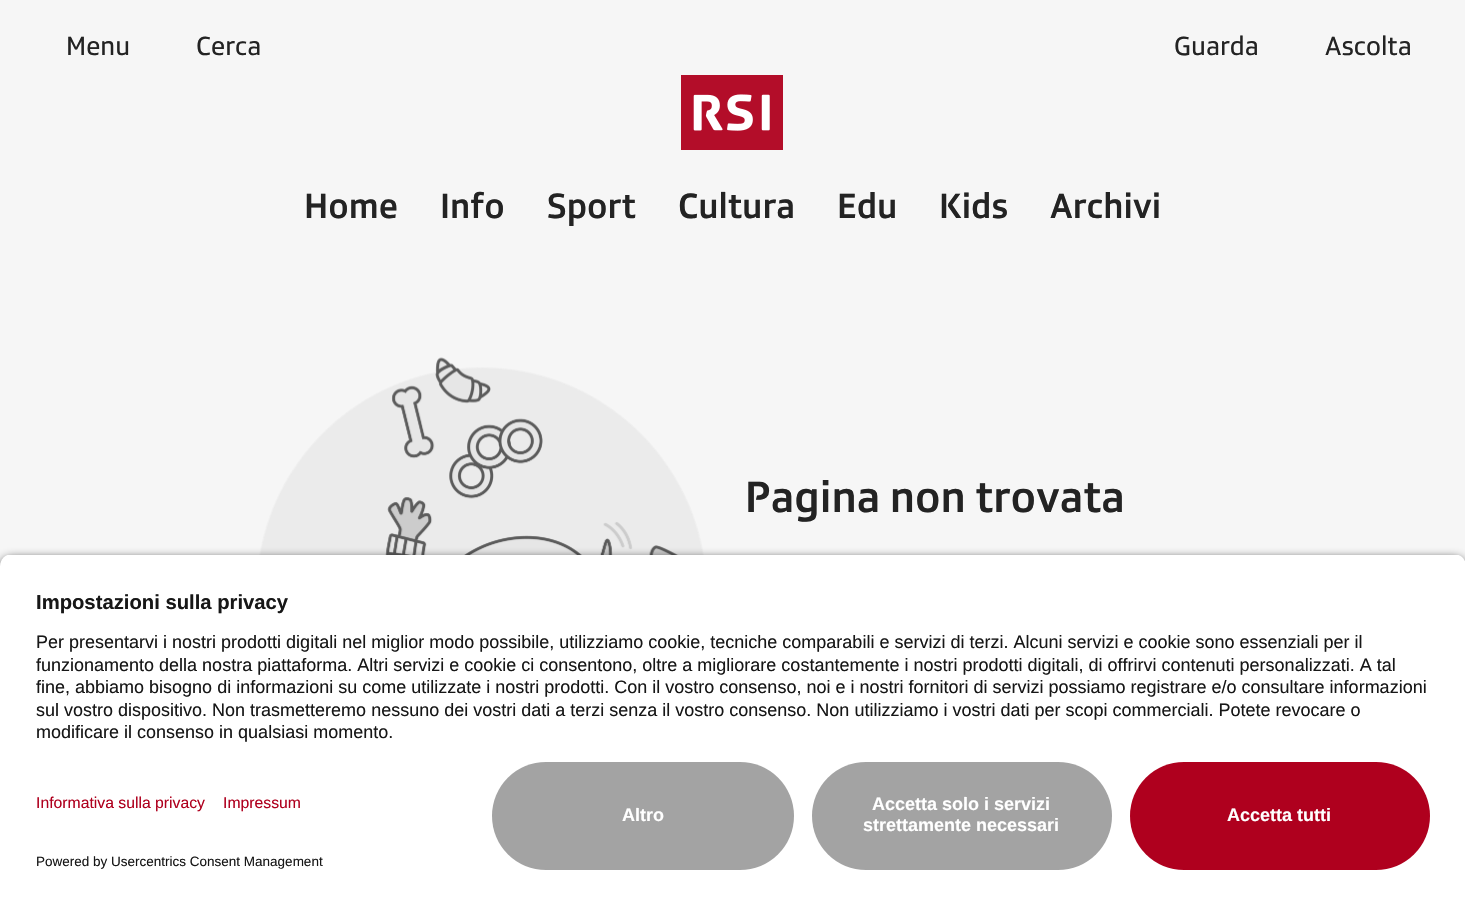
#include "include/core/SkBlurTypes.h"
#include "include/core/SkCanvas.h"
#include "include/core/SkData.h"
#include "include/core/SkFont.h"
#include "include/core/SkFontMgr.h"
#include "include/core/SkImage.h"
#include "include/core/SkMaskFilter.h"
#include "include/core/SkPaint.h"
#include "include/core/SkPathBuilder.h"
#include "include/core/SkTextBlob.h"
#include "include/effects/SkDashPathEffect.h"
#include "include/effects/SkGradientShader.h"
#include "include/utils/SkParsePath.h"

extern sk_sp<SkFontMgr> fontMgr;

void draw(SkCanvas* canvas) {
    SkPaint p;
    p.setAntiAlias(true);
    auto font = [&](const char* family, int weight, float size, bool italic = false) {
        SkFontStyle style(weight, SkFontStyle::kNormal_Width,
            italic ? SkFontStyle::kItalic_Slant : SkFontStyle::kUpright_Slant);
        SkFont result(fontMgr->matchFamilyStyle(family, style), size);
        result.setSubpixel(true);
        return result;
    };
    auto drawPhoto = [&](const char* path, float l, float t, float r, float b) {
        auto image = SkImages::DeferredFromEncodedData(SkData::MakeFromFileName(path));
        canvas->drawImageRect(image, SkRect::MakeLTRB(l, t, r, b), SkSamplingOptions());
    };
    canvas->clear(0xFFF6F6F6);
    auto font1 = font("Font", 400, 27);
    p.setColor(0xFF232323);
    {
        const struct { const char* s; float x, y; } items[] = {
            {"Menu", 66, 55},
            {"Cerca", 196, 55},
            {"Guarda", 1174, 55},
            {"Ascolta", 1325, 55},
        };
        for (auto [s, x, y] : items) {
            canvas->drawString(s, x, y, font1, p);
        }
    }
    drawPhoto("media/1.png", 681, 75, 783, 150);
    auto font2 = font("Font", 500, 36);
    {
        const struct { const char* s; float x, y; } items[] = {
            {"Home", 304, 218},
            {"Info", 440, 218},
            {"Sport", 547, 218},
            {"Cultura", 678, 218},
            {"Edu", 837, 218},
            {"Kids", 939, 218},
            {"Archivi", 1050, 218},
        };
        for (auto [s, x, y] : items) {
            canvas->drawString(s, x, y, font2, p);
        }
    }
    drawPhoto("media/2.png", 259, 357, 704, 555);
    auto font3 = font("Font", 500, 45);
    canvas->drawString("Pagina non trovata", 745, 512, font3, p);
    p.setColor(0xCC000000);
    p.setMaskFilter(SkMaskFilter::MakeBlur(kNormal_SkBlurStyle, 5));
    canvas->drawRoundRect(SkRect::MakeLTRB(0, 558, 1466, 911), 12, 12, p);
    p.setMaskFilter(nullptr);
    canvas->save();
    canvas->clipPath(SkPathBuilder().moveTo(12, 554).lineTo(1454, 554).cubicTo(1460.5f, 554, 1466, 559.5f, 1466, 566).lineTo(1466, 750).lineTo(0, 750).lineTo(0, 566).cubicTo(0, 559.5f, 5.5f, 554, 12, 554).close().detach(), true);
    p.setColor(0xFFFFFFFF);
    canvas->drawRect(SkRect::MakeLTRB(0, 555, 1465, 750), p);
    canvas->restore();
    auto font4 = font("Liberation Sans", 700, 20.25f);
    p.setColor(0xFF171717);
    canvas->drawString("Impostazioni sulla privacy", 36, 609, font4, p);
    auto font5 = font("Liberation Sans", 400, 18);
    {
        const struct { const char* s; float x, y; } items[] = {
            {"Per presentarvi i nostri prodotti digitali nel miglior modo possibile, utilizziamo cookie, tecniche comparabili e servizi di terzi. Alcuni servizi e cookie sono essenziali per il", 36, 648},
            {"funzionamento della nostra piattaforma. Altri servizi e cookie ci consentono, oltre a migliorare costantemente i nostri prodotti digitali, di offrirvi contenuti personalizzati. A tal", 36, 671},
            {"fine, abbiamo bisogno di informazioni su come utilizzate i nostri prodotti. Con il vostro consenso, noi e i nostri fornitori di servizi possiamo registrare e/o consultare informazioni", 36, 693},
            {"sul vostro dispositivo. Non trasmetteremo nessuno dei vostri dati a terzi senza il vostro consenso. Non utilizziamo i vostri dati per scopi commerciali. Potete revocare o", 36, 716},
            {"modificare il consenso in qualsiasi momento.", 36, 738},
        };
        for (auto [s, x, y] : items) {
            canvas->drawString(s, x, y, font5, p);
        }
    }
    p.setColor(0xFFFFFFFF);
    canvas->drawRect(SkRect::MakeLTRB(0, 750, 1465, 905), p);
    auto font6 = font("Liberation Sans", 400, 15.75f);
    p.setColor(0xFFAF001E);
    canvas->drawString("Informativa sulla privacy", 36, 808, font6, p);
    canvas->drawString("Impressum", 223, 808, font6, p);
    auto font7 = font("Liberation Sans", 400, 13.5f);
    p.setColor(0xFF171717);
    canvas->drawString("Powered by Usercentrics Consent Management", 36, 866, font7, p);
    p.setColor(0xFFA3A3A3);
    canvas->drawRoundRect(SkRect::MakeLTRB(492, 762, 794, 870), 54, 54, p);
    auto font8 = font("Liberation Sans", 700, 18);
    p.setColor(0xFFFFFFFF);
    canvas->drawString("Altro", 622, 821, font8, p);
    p.setColor(0xFFA3A3A3);
    canvas->drawRoundRect(SkRect::MakeLTRB(812, 762, 1112, 870), 54, 54, p);
    p.setColor(0xFFFFFFFF);
    canvas->drawString("Accetta solo i servizi", 872, 810, font8, p);
    canvas->drawString("strettamente necessari", 863, 831, font8, p);
    p.setColor(0xFFAF001E);
    canvas->drawRoundRect(SkRect::MakeLTRB(1130, 762, 1430, 870), 54, 54, p);
    p.setColor(0xFFFFFFFF);
    canvas->drawString("Accetta tutti", 1227, 821, font8, p);
}
